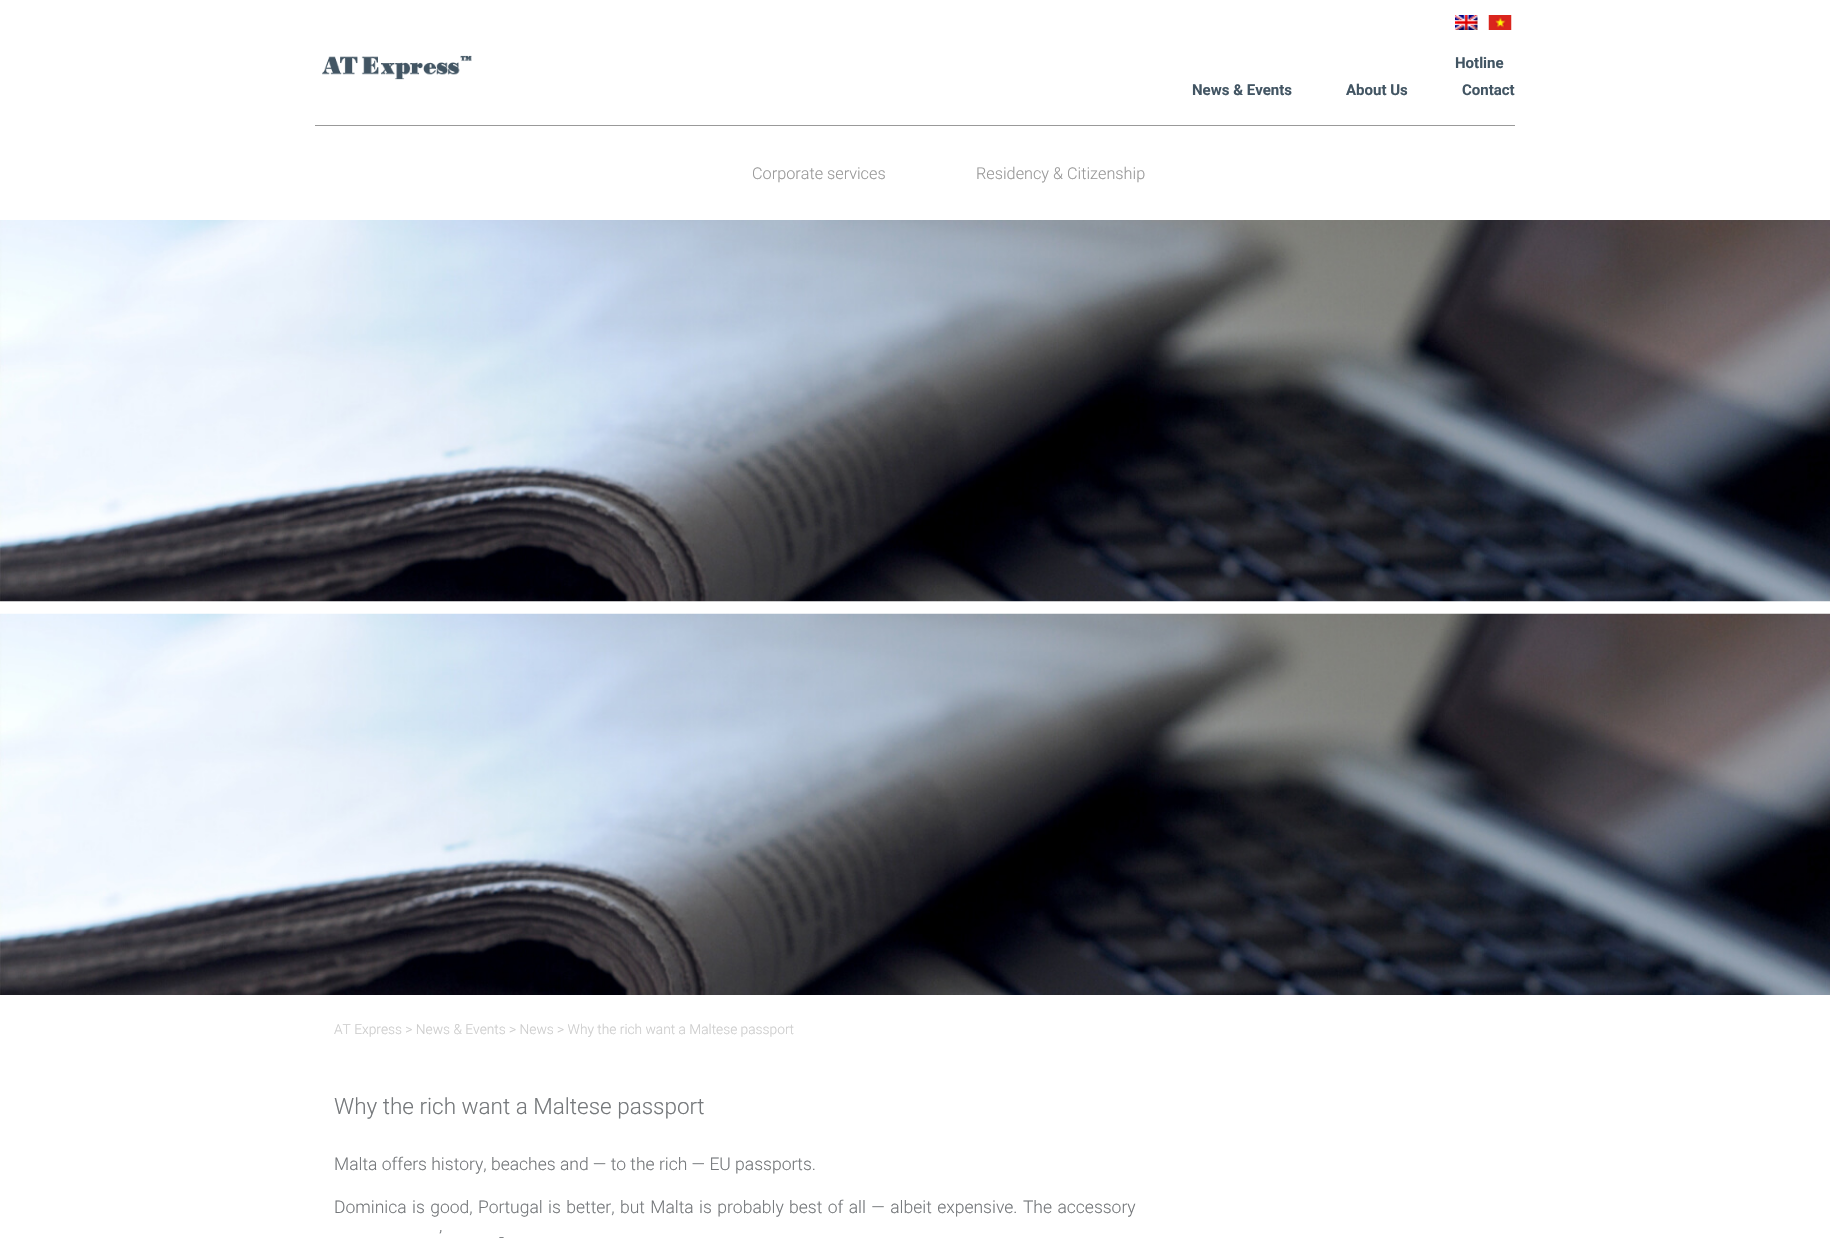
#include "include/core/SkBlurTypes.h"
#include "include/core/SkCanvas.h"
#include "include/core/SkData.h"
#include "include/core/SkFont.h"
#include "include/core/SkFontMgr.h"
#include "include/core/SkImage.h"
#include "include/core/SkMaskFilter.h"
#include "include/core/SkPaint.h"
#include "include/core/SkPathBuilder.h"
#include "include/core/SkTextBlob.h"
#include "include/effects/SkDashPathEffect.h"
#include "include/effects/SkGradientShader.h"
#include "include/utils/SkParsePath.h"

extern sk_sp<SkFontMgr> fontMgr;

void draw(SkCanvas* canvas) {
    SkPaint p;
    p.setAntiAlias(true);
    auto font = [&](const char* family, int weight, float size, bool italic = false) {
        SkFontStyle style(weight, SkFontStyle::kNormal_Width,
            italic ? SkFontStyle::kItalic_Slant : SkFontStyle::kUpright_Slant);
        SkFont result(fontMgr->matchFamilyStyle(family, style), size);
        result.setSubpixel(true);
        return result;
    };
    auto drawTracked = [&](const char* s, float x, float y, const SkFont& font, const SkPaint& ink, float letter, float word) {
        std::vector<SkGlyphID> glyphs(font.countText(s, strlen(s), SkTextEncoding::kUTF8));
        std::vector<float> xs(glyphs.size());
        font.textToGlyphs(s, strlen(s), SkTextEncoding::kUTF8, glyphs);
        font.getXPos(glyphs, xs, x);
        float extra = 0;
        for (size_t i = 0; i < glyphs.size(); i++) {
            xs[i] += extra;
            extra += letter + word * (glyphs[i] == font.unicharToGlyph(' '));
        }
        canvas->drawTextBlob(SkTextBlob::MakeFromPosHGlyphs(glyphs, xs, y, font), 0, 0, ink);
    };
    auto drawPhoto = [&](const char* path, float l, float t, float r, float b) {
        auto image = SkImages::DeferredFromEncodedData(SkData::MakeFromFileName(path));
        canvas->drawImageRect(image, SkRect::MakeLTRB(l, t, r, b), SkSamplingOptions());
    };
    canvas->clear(0xFFFFFFFF);
    drawPhoto("media/1.png", 322, 55, 472, 80);
    drawPhoto("media/2.png", 1455, 15, 1478, 30);
    drawPhoto("media/3.png", 1488, 15, 1512, 30);
    auto font1 = font("Roboto", 700, 15);
    p.setColor(0xFF425563);
    {
        const struct { const char* s; float x, y; } items[] = {
            {"Hotline", 1455, 68},
            {"News & Events", 1192, 95},
            {"About Us", 1346, 95},
            {"Contact", 1462, 95},
        };
        for (auto [s, x, y] : items) {
            canvas->drawString(s, x, y, font1, p);
        }
    }
    p.setColor(0xFF999999);
    canvas->drawRect(SkRect::MakeLTRB(315, 125, 1515, 126), p);
    auto font2 = font("Roboto", 300, 16.25f);
    canvas->drawString("Corporate services", 752, 179, font2, p);
    canvas->drawString("Residency & Citizenship", 976, 179, font2, p);
    drawPhoto("media/4.png", 0, 220, 1830, 602);
    drawPhoto("media/5.png", 0, 613, 1830, 995);
    auto font3 = font("Roboto", 300, 13.75f);
    p.setColor(0xFFCCCCCC);
    canvas->drawString("AT Express > News & Events > News > Why the rich want a Maltese passport", 334, 1034, font3, p);
    auto font4 = font("Roboto", 300, 22.5f);
    p.setColor(0xFF75787B);
    canvas->drawString("Why the rich want a Maltese passport", 334, 1114, font4, p);
    auto font5 = font("Roboto", 300, 17.5f);
    canvas->drawString("Malta offers history, beaches and — to the rich — EU passports.", 334, 1170, font5, p);
    drawTracked("Dominica is good, Portugal is better, but Malta is probably best of all — albeit expensive. The accessory", 334, 1213, font5, p, 0, 1.1f);
    canvas->drawString("’", 439, 1243, font5, p);
    canvas->drawString("-", 499, 1243, font5, p);
}
